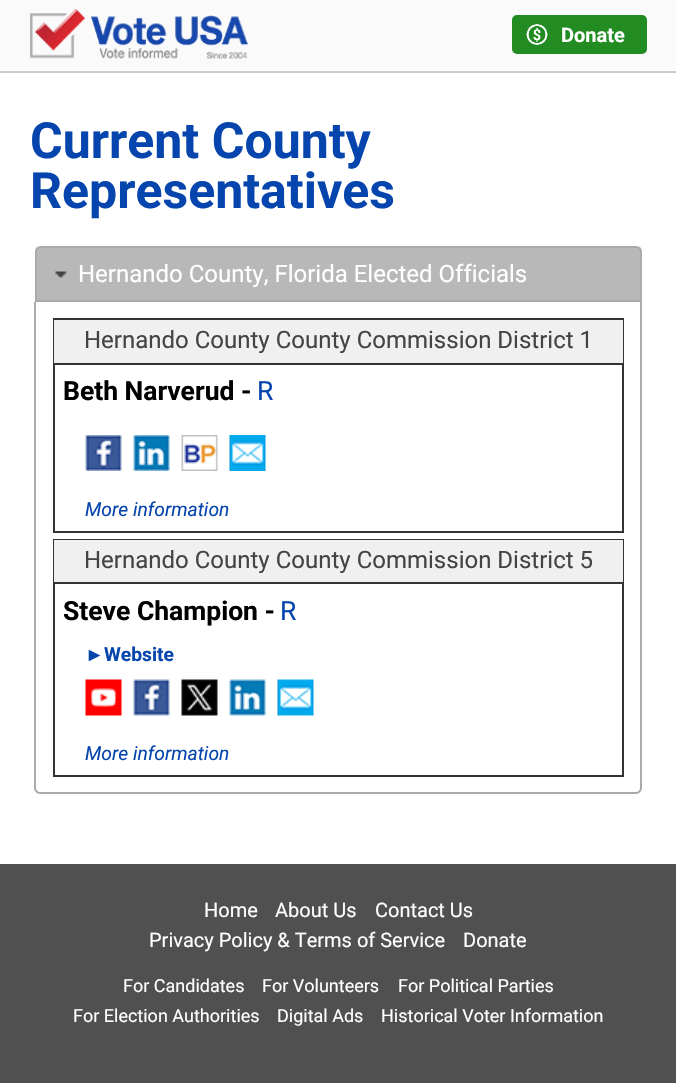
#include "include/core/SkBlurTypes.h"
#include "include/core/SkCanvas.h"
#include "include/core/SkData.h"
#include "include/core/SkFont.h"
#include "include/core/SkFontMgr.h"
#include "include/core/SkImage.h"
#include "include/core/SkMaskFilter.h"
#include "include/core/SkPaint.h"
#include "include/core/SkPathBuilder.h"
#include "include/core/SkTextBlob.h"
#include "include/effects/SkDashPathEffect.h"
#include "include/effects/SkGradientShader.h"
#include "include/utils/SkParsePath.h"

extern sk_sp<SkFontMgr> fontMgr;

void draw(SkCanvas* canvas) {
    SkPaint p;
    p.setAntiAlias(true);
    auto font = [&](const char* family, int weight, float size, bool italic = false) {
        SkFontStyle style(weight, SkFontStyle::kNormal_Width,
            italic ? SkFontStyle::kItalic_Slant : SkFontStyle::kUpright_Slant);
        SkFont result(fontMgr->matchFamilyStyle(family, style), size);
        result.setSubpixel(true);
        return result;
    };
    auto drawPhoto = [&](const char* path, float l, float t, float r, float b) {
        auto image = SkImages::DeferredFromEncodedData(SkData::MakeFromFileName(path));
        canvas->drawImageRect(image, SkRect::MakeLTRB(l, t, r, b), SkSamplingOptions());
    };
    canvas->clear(0xFFFFFFFF);
    p.setColor(0xFFFAFAFA);
    canvas->drawRect(SkRect::MakeLTRB(0, 0, 676, 71), p);
    p.setColor(0xFFCCCCCC);
    canvas->drawRect(SkRect::MakeLTRB(0, 71, 676, 73), p);
    drawPhoto("media/1.png", 30, 9, 248, 59);
    p.setColor(0xFF228B22);
    canvas->drawRoundRect(SkRect::MakeLTRB(513.5f, 16.5f, 645.5f, 52.5f), 3.5f, 3.5f, p);
    p.setStyle(SkPaint::kStroke_Style);
    p.setStrokeWidth(3);
    canvas->drawRoundRect(SkRect::MakeLTRB(513.5f, 16.5f, 645.5f, 52.5f), 3.5f, 3.5f, p);
    drawPhoto("media/2.png", 526, 24, 548, 45);
    auto font1 = font("Roboto", 700, 20);
    p.setStyle(SkPaint::kFill_Style);
    p.setColor(0xFFFFFFFF);
    canvas->drawString("Donate", 561, 42, font1, p);
    auto font2 = font("Roboto", 700, 50);
    p.setColor(0xFF0645AD);
    canvas->drawString("Current County", 30, 158, font2, p);
    canvas->drawString("Representatives", 30, 208, font2, p);
    p.setColor(0xFFB8B8B8);
    canvas->drawPath(SkPathBuilder().moveTo(41, 247).lineTo(636, 247).cubicTo(639, 247, 641, 249, 641, 252).lineTo(641, 301).lineTo(36, 301).lineTo(36, 252).cubicTo(36, 249, 38, 247, 41, 247).close().detach(), p);
    p.setStyle(SkPaint::kStroke_Style);
    p.setStrokeWidth(2);
    p.setColor(0xFFAAAAAA);
    canvas->drawPath(SkPathBuilder().moveTo(41, 247).lineTo(636, 247).cubicTo(639, 247, 641, 249, 641, 252).lineTo(641, 301).lineTo(36, 301).lineTo(36, 252).cubicTo(36, 249, 38, 247, 41, 247).close().detach(), p);
    drawPhoto("media/3.png", 55, 271, 67, 278);
    auto font3 = font("Roboto", 400, 24);
    p.setStyle(SkPaint::kFill_Style);
    p.setColor(0xFFFFFFFF);
    canvas->drawString("Hernando County, Florida Elected Officials", 78, 282, font3, p);
    p.setColor(0xFFAAAAAA);
    canvas->drawPath(SkPathBuilder(SkPathFillType::kEvenOdd).moveTo(34, 302).lineTo(642, 302).lineTo(642, 788).cubicTo(642, 791, 639, 794, 636, 794).lineTo(40, 794).cubicTo(37, 794, 34, 791, 34, 788).close().moveTo(36, 302).lineTo(640, 302).lineTo(640, 788).cubicTo(640, 790, 638, 792, 636, 792).lineTo(40, 792).cubicTo(38, 792, 36, 790, 36, 788).close().detach(), p);
    p.setStyle(SkPaint::kStroke_Style);
    p.setColor(0xFF333333);
    canvas->drawRect(SkRect::MakeLTRB(54, 319, 623, 532), p);
    p.setStyle(SkPaint::kFill_Style);
    p.setColor(0xFFF0F0F0);
    canvas->drawRect(SkRect::MakeLTRB(54, 320, 623, 363), p);
    p.setColor(0xFF333333);
    canvas->drawRect(SkRect::MakeLTRB(54, 363, 623, 365), p);
    p.setColor(0xFF444444);
    canvas->drawString("Hernando County County Commission District 1", 84, 348, font3, p);
    auto font4 = font("Roboto", 700, 26.5f);
    p.setColor(0xFF000000);
    canvas->drawString("Beth Narverud -", 63, 400, font4, p);
    auto font5 = font("Roboto", 400, 26.5f);
    p.setColor(0xFF0645AD);
    canvas->drawString("R", 257, 400, font5, p);
    drawPhoto("media/4.png", 85, 435, 122, 471);
    drawPhoto("media/5.png", 133, 435, 170, 471);
    drawPhoto("media/6.png", 181, 435, 218, 471);
    drawPhoto("media/7.png", 229, 435, 266, 471);
    auto font6 = font("Roboto", 400, 19.25f, true);
    canvas->drawString("More information", 85, 516, font6, p);
    p.setStyle(SkPaint::kStroke_Style);
    p.setColor(0xFF333333);
    canvas->drawRect(SkRect::MakeLTRB(54, 540, 623, 776), p);
    p.setStyle(SkPaint::kFill_Style);
    p.setColor(0xFFF0F0F0);
    canvas->drawRect(SkRect::MakeLTRB(54, 540, 623, 582), p);
    p.setColor(0xFF333333);
    canvas->drawRect(SkRect::MakeLTRB(54, 582, 623, 584), p);
    p.setColor(0xFF444444);
    canvas->drawString("Hernando County County Commission District 5", 84, 568, font3, p);
    p.setColor(0xFF000000);
    canvas->drawString("Steve Champion -", 63, 620, font4, p);
    p.setColor(0xFF0645AD);
    canvas->drawString("R", 280, 620, font5, p);
    auto font7 = font("Liberation Sans", 700, 19.25f);
    canvas->drawString("►", 85, 661, font7, p);
    auto font8 = font("Roboto", 700, 19.25f);
    canvas->drawString("Website", 104, 661, font8, p);
    drawPhoto("media/8.png", 85, 679, 122, 716);
    drawPhoto("media/9.png", 133, 679, 170, 716);
    drawPhoto("media/10.png", 181, 679, 218, 716);
    drawPhoto("media/11.png", 229, 679, 266, 716);
    drawPhoto("media/12.png", 277, 679, 314, 716);
    canvas->drawString("More information", 85, 760, font6, p);
    p.setColor(0xFF505050);
    canvas->drawRect(SkRect::MakeLTRB(0, 864, 676, 1083), p);
    auto font9 = font("Roboto", 400, 20);
    p.setColor(0xFFFFFFFF);
    {
        const struct { const char* s; float x, y; } items[] = {
            {"Home", 204, 917},
            {"About Us", 275, 917},
            {"Contact Us", 375, 917},
            {"Privacy Policy & Terms of Service", 149, 947},
            {"Donate", 463, 947},
        };
        for (auto [s, x, y] : items) {
            canvas->drawString(s, x, y, font9, p);
        }
    }
    auto font10 = font("Roboto", 400, 18);
    {
        const struct { const char* s; float x, y; } items[] = {
            {"For Candidates", 123, 992},
            {"For Volunteers", 262, 992},
            {"For Political Parties", 398, 992},
            {"For Election Authorities", 73, 1022},
            {"Digital Ads", 277, 1022},
            {"Historical Voter Information", 381, 1022},
        };
        for (auto [s, x, y] : items) {
            canvas->drawString(s, x, y, font10, p);
        }
    }
}
